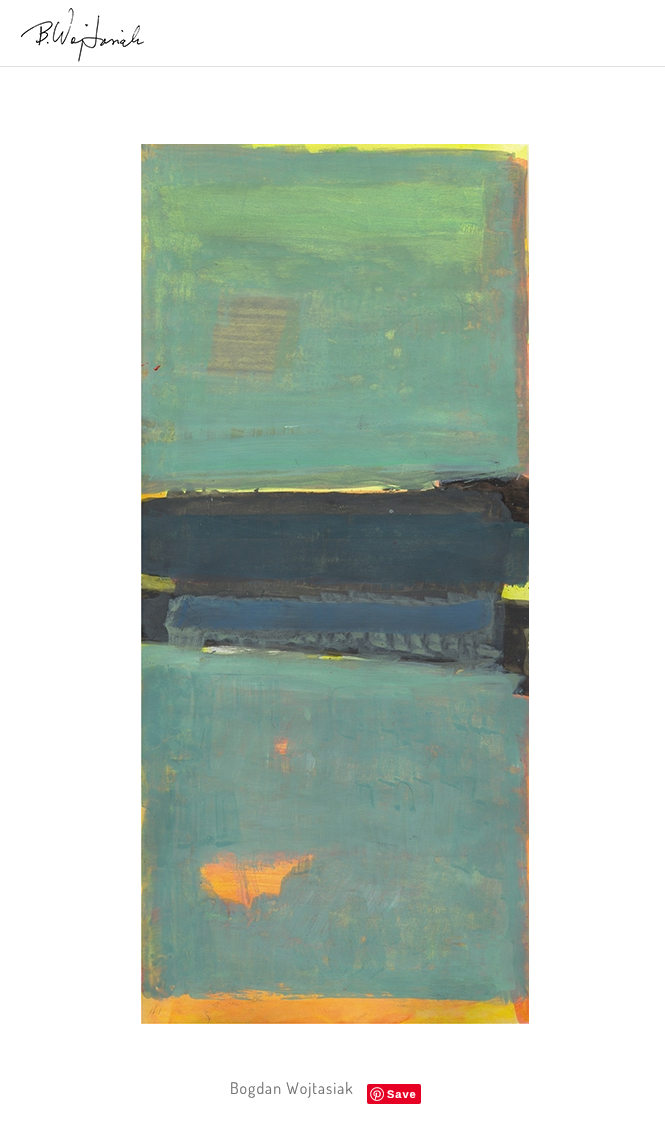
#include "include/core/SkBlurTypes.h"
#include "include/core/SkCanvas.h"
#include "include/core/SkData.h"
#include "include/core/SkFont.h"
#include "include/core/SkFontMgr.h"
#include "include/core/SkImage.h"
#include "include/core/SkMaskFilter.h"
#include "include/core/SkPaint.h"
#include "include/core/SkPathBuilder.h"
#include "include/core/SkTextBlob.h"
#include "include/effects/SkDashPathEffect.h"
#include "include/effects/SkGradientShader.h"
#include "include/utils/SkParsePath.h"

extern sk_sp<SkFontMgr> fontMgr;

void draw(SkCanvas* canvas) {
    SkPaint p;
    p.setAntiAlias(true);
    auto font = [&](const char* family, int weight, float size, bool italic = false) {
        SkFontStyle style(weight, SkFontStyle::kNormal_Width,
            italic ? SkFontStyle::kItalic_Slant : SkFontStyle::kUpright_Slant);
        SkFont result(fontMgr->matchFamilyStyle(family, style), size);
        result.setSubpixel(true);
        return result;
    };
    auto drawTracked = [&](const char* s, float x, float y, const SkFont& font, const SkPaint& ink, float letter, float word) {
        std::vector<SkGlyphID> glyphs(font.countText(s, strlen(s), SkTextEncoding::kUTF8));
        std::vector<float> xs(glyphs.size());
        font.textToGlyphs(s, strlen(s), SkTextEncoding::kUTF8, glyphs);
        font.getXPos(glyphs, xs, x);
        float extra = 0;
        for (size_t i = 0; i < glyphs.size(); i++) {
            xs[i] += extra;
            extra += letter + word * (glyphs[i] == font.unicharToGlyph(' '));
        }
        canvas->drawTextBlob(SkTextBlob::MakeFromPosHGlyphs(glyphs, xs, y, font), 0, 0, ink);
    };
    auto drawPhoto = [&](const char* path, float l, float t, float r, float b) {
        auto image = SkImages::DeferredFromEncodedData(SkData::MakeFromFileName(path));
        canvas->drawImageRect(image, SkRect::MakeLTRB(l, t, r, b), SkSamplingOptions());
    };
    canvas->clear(0xFFFFFFFF);
    p.setColor(0xFFDFDFDF);
    canvas->drawRect(SkRect::MakeLTRB(0, 66, 665, 67), p);
    drawPhoto("media/1.png", 21, 8, 144, 62);
    drawPhoto("media/2.png", 141, 144, 529, 1024);
    auto font1 = font("Dosis", 400, 16);
    p.setColor(0xFF727272);
    drawTracked("Bogdan Wojtasiak", 230, 1094, font1, p, 1, 0);
    p.setColor(0xFFE60023);
    canvas->drawRoundRect(SkRect::MakeLTRB(367, 1084, 421, 1104), 2, 2, p);
    drawPhoto("media/3.png", 370, 1087, 384, 1101);
    auto font2 = font("Liberation Sans", 700, 11);
    p.setColor(0xFFFFFFFF);
    drawTracked("Save", 387, 1098, font2, p, 1, 0);
}
